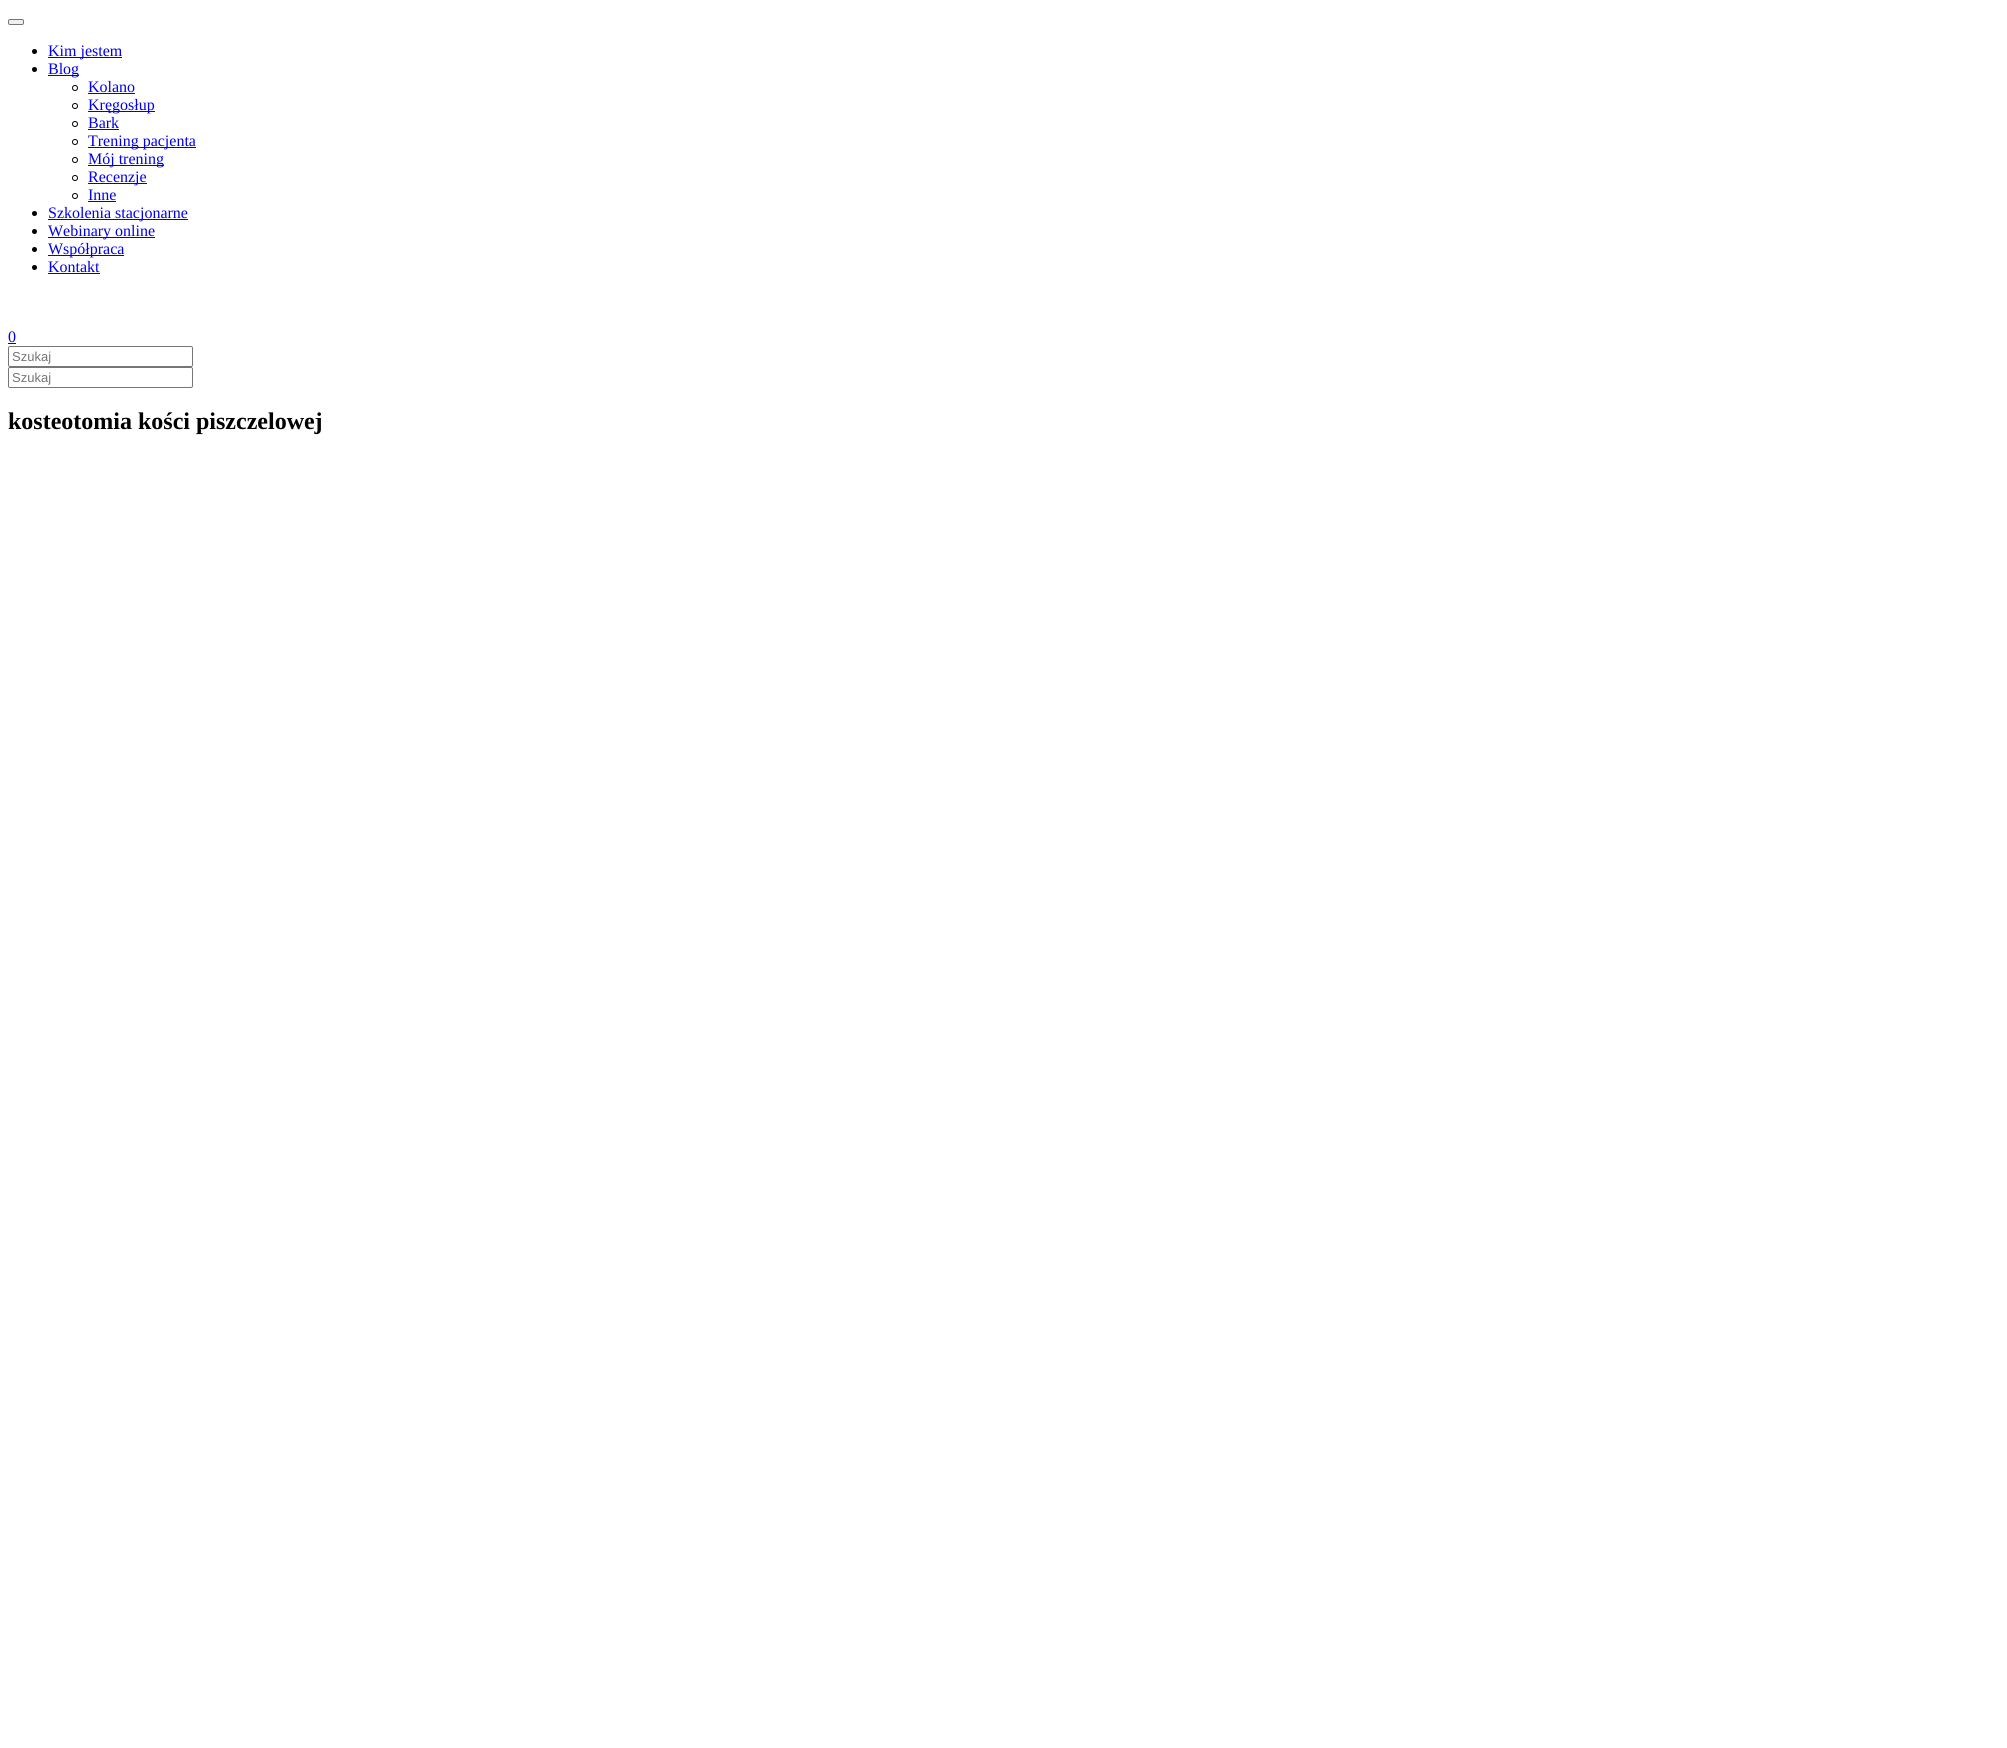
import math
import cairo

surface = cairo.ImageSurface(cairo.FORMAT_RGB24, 2007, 1748)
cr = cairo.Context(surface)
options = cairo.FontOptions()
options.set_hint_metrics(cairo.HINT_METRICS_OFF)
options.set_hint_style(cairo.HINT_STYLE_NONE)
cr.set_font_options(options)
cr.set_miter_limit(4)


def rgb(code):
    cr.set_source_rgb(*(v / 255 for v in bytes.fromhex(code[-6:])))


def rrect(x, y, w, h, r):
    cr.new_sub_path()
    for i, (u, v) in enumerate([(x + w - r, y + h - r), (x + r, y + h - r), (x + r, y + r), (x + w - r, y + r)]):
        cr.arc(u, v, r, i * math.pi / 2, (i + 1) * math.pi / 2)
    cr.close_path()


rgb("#ffffff")
cr.paint()
rgb("#efefef")
rrect(8.5, 19.5, 15, 5, 1.5)
cr.fill_preserve()
rgb("#767676")
cr.set_line_width(1)
cr.stroke()
rgb("#000000")
cr.arc(34.5, 51.5, 2.5, 0, 2 * math.pi)
cr.fill()
rgb("#0000ee")
cr.rectangle(48, 57, 74, 1)
cr.fill()
rgb("#000000")
cr.arc(34.5, 69.5, 2.5, 0, 2 * math.pi)
cr.fill()
rgb("#0000ee")
cr.rectangle(48, 75, 31, 1)
cr.fill()
cr.arc(75, 88, 2.5, 0, 2 * math.pi)
rgb("#000000")
cr.stroke()
rgb("#0000ee")
cr.rectangle(88, 93, 47, 1)
cr.fill()
cr.arc(75, 106, 2.5, 0, 2 * math.pi)
rgb("#000000")
cr.stroke()
rgb("#0000ee")
cr.rectangle(88, 111, 67, 1)
cr.fill()
cr.arc(75, 124, 2.5, 0, 2 * math.pi)
rgb("#000000")
cr.stroke()
rgb("#0000ee")
cr.rectangle(88, 129, 31, 1)
cr.fill()
cr.arc(75, 142, 2.5, 0, 2 * math.pi)
rgb("#000000")
cr.stroke()
rgb("#0000ee")
cr.rectangle(88, 147, 108, 1)
cr.fill()
cr.arc(75, 160, 2.5, 0, 2 * math.pi)
rgb("#000000")
cr.stroke()
rgb("#0000ee")
cr.rectangle(88, 165, 76, 1)
cr.fill()
cr.arc(75, 178, 2.5, 0, 2 * math.pi)
rgb("#000000")
cr.stroke()
rgb("#0000ee")
cr.rectangle(88, 183, 59, 1)
cr.fill()
cr.arc(75, 196, 2.5, 0, 2 * math.pi)
rgb("#000000")
cr.stroke()
rgb("#0000ee")
cr.rectangle(88, 201, 28, 1)
cr.fill()
rgb("#000000")
cr.arc(34.5, 213.5, 2.5, 0, 2 * math.pi)
cr.fill()
rgb("#0000ee")
cr.rectangle(48, 219, 140, 1)
cr.fill()
rgb("#000000")
cr.arc(34.5, 231.5, 2.5, 0, 2 * math.pi)
cr.fill()
rgb("#0000ee")
cr.rectangle(48, 237, 107, 1)
cr.fill()
rgb("#000000")
cr.arc(34.5, 249.5, 2.5, 0, 2 * math.pi)
cr.fill()
rgb("#0000ee")
cr.rectangle(48, 255, 76, 1)
cr.fill()
rgb("#000000")
cr.arc(34.5, 267.5, 2.5, 0, 2 * math.pi)
cr.fill()
rgb("#0000ee")
cr.rectangle(48, 273, 52, 1)
cr.fill()
cr.rectangle(8, 343, 8, 1)
cr.fill()
rrect(8.5, 346.5, 184, 20, 1.5)
rgb("#767676")
cr.stroke()
rrect(8.5, 367.5, 184, 20, 1.5)
cr.stroke()
cr.select_font_face("Liberation Serif")
cr.set_font_size(16)
rgb("#0000ee")
for x, y, s in [
    (48, 56, "Kim jestem"),
    (48, 74, "Blog"),
    (88, 92, "Kolano"),
    (88, 110, "Kręgosłup"),
    (88, 128, "Bark"),
    (88, 146, "Trening pacjenta"),
    (88, 164, "Mój trening"),
    (88, 182, "Recenzje"),
    (88, 200, "Inne"),
    (48, 218, "Szkolenia stacjonarne"),
    (48, 236, "Webinary online"),
    (48, 254, "Współpraca"),
    (48, 272, "Kontakt"),
    (8, 342, "0"),
]:
    cr.move_to(x, y)
    cr.show_text(s)
cr.select_font_face("Liberation Sans")
cr.set_font_size(13)
rgb("#757575")
cr.move_to(12, 361)
cr.show_text("Szukaj")
cr.move_to(12, 382)
cr.show_text("Szukaj")
cr.select_font_face("Liberation Serif", cairo.FONT_SLANT_NORMAL, cairo.FONT_WEIGHT_BOLD)
cr.set_font_size(24)
rgb("#000000")
cr.move_to(8, 429)
cr.show_text("kosteotomia kości piszczelowej")
surface.write_to_png("page.png")
